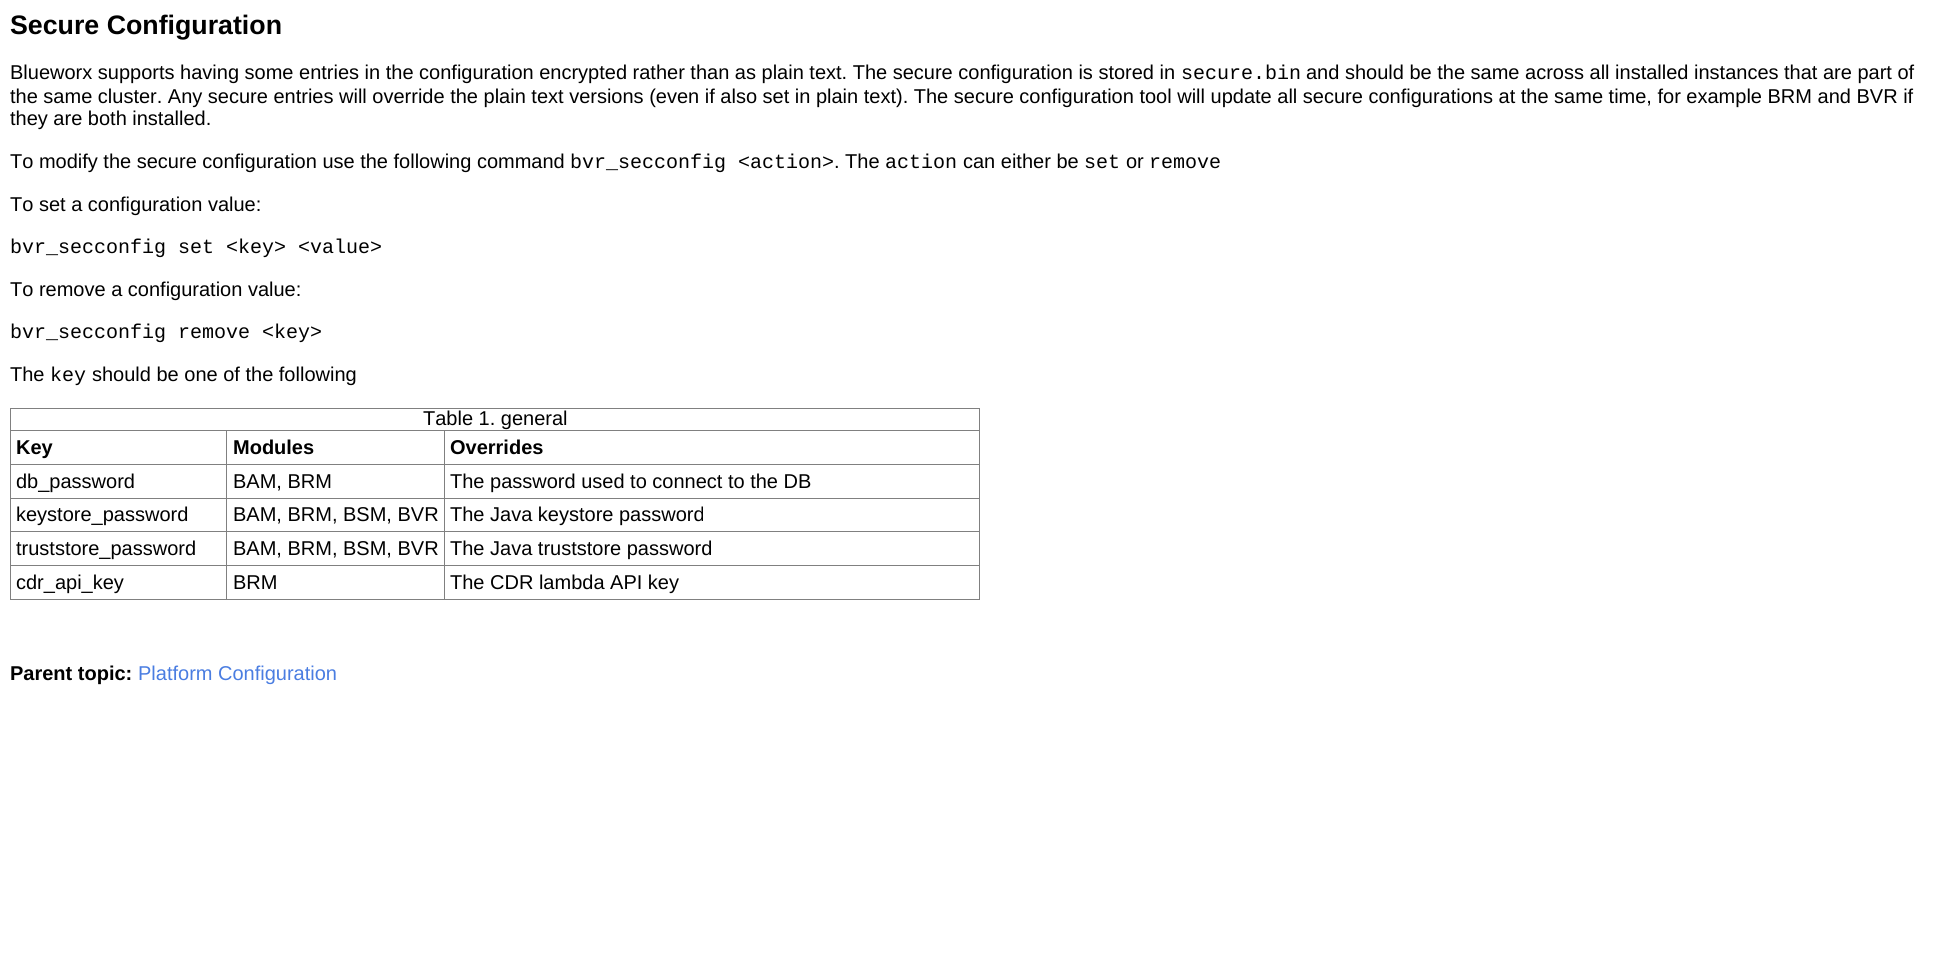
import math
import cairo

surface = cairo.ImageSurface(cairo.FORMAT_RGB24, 1944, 954)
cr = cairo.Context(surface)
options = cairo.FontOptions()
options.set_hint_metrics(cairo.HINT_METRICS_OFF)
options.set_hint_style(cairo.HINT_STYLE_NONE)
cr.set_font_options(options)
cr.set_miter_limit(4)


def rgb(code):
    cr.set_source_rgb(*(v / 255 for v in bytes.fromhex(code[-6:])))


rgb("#ffffff")
cr.paint()
for x, y, w, h, color in [
    (10, 408, 970, 1, "#808080"),
    (979, 408, 1, 192, "#808080"),
    (10, 599, 970, 1, "#808080"),
    (10, 408, 1, 192, "#808080"),
    (444, 430, 536, 1, "#808080"),
    (444, 464, 536, 1, "#808080"),
    (444, 498, 536, 1, "#808080"),
    (444, 531, 536, 1, "#808080"),
    (444, 565, 536, 1, "#808080"),
    (444, 565, 1, 35, "#808080"),
    (226, 565, 219, 1, "#808080"),
    (444, 531, 1, 35, "#808080"),
    (226, 531, 219, 1, "#808080"),
    (444, 498, 1, 35, "#808080"),
    (226, 498, 219, 1, "#808080"),
    (444, 464, 1, 35, "#808080"),
    (226, 464, 219, 1, "#808080"),
    (444, 430, 1, 35, "#808080"),
    (226, 430, 219, 1, "#808080"),
    (226, 565, 1, 35, "#808080"),
    (10, 565, 218, 1, "#808080"),
    (226, 531, 1, 35, "#808080"),
    (10, 531, 218, 1, "#808080"),
    (226, 498, 1, 35, "#808080"),
    (10, 498, 218, 1, "#808080"),
    (226, 464, 1, 35, "#808080"),
    (10, 464, 218, 1, "#808080"),
    (226, 430, 1, 35, "#808080"),
    (10, 430, 218, 1, "#808080"),
]:
    rgb(color)
    cr.rectangle(x, y, w, h)
    cr.fill()
cr.select_font_face("Liberation Sans", cairo.FONT_SLANT_NORMAL, cairo.FONT_WEIGHT_BOLD)
cr.set_font_size(26.75)
rgb("#000000")
cr.move_to(10, 34)
cr.show_text("Secure Configuration")
cr.select_font_face("Liberation Sans")
cr.set_font_size(20)
cr.move_to(10, 79)
cr.show_text("Blueworx supports having some entries in the configuration encrypted rather than as plain text. The secure configuration is stored in")
cr.select_font_face("Liberation Mono")
cr.move_to(1181, 79)
cr.show_text("secure.bin")
cr.select_font_face("Liberation Sans")
for x, y, s in [
    (1306, 79, "and should be the same across all installed instances that are part of"),
    (10, 103, "the same cluster. Any secure entries will override the plain text versions (even if also set in plain text). The secure configuration tool will update all secure configurations at the same time, for example BRM and BVR if"),
    (10, 125, "they are both installed."),
    (10, 168, "To modify the secure configuration use the following command"),
]:
    cr.move_to(x, y)
    cr.show_text(s)
cr.select_font_face("Liberation Mono")
cr.move_to(570, 168)
cr.show_text("bvr_secconfig <action>")
cr.select_font_face("Liberation Sans")
cr.move_to(834, 168)
cr.show_text(". The")
cr.select_font_face("Liberation Mono")
cr.move_to(885, 168)
cr.show_text("action")
cr.select_font_face("Liberation Sans")
cr.move_to(963, 168)
cr.show_text("can either be")
cr.select_font_face("Liberation Mono")
cr.move_to(1084, 168)
cr.show_text("set")
cr.select_font_face("Liberation Sans")
cr.move_to(1126, 168)
cr.show_text("or")
cr.select_font_face("Liberation Mono")
cr.move_to(1149, 168)
cr.show_text("remove")
cr.select_font_face("Liberation Sans")
cr.move_to(10, 211)
cr.show_text("To set a configuration value:")
cr.select_font_face("Liberation Mono")
cr.move_to(10, 253)
cr.show_text("bvr_secconfig set <key> <value>")
cr.select_font_face("Liberation Sans")
cr.move_to(10, 296)
cr.show_text("To remove a configuration value:")
cr.select_font_face("Liberation Mono")
cr.move_to(10, 338)
cr.show_text("bvr_secconfig remove <key>")
cr.select_font_face("Liberation Sans")
cr.move_to(10, 381)
cr.show_text("The")
cr.select_font_face("Liberation Mono")
cr.move_to(50, 381)
cr.show_text("key")
cr.select_font_face("Liberation Sans")
cr.move_to(92, 381)
cr.show_text("should be one of the following")
cr.move_to(423, 425)
cr.show_text("Table 1. general")
cr.select_font_face("Liberation Sans", cairo.FONT_SLANT_NORMAL, cairo.FONT_WEIGHT_BOLD)
for x, y, s in [
    (16, 454, "Key"),
    (233, 454, "Modules"),
    (450, 454, "Overrides"),
]:
    cr.move_to(x, y)
    cr.show_text(s)
cr.select_font_face("Liberation Sans")
for x, y, s in [
    (16, 488, "db_password"),
    (233, 488, "BAM, BRM"),
    (450, 488, "The password used to connect to the DB"),
    (16, 521, "keystore_password"),
    (233, 521, "BAM, BRM, BSM, BVR"),
    (450, 521, "The Java keystore password"),
    (16, 555, "truststore_password"),
    (233, 555, "BAM, BRM, BSM, BVR"),
    (450, 555, "The Java truststore password"),
    (16, 589, "cdr_api_key"),
    (233, 589, "BRM"),
    (450, 589, "The CDR lambda API key"),
]:
    cr.move_to(x, y)
    cr.show_text(s)
cr.select_font_face("Liberation Sans", cairo.FONT_SLANT_NORMAL, cairo.FONT_WEIGHT_BOLD)
cr.move_to(10, 680)
cr.show_text("Parent topic:")
cr.select_font_face("Liberation Sans")
rgb("#4a7de1")
cr.move_to(138, 680)
cr.show_text("Platform Configuration")
surface.write_to_png("page.png")
